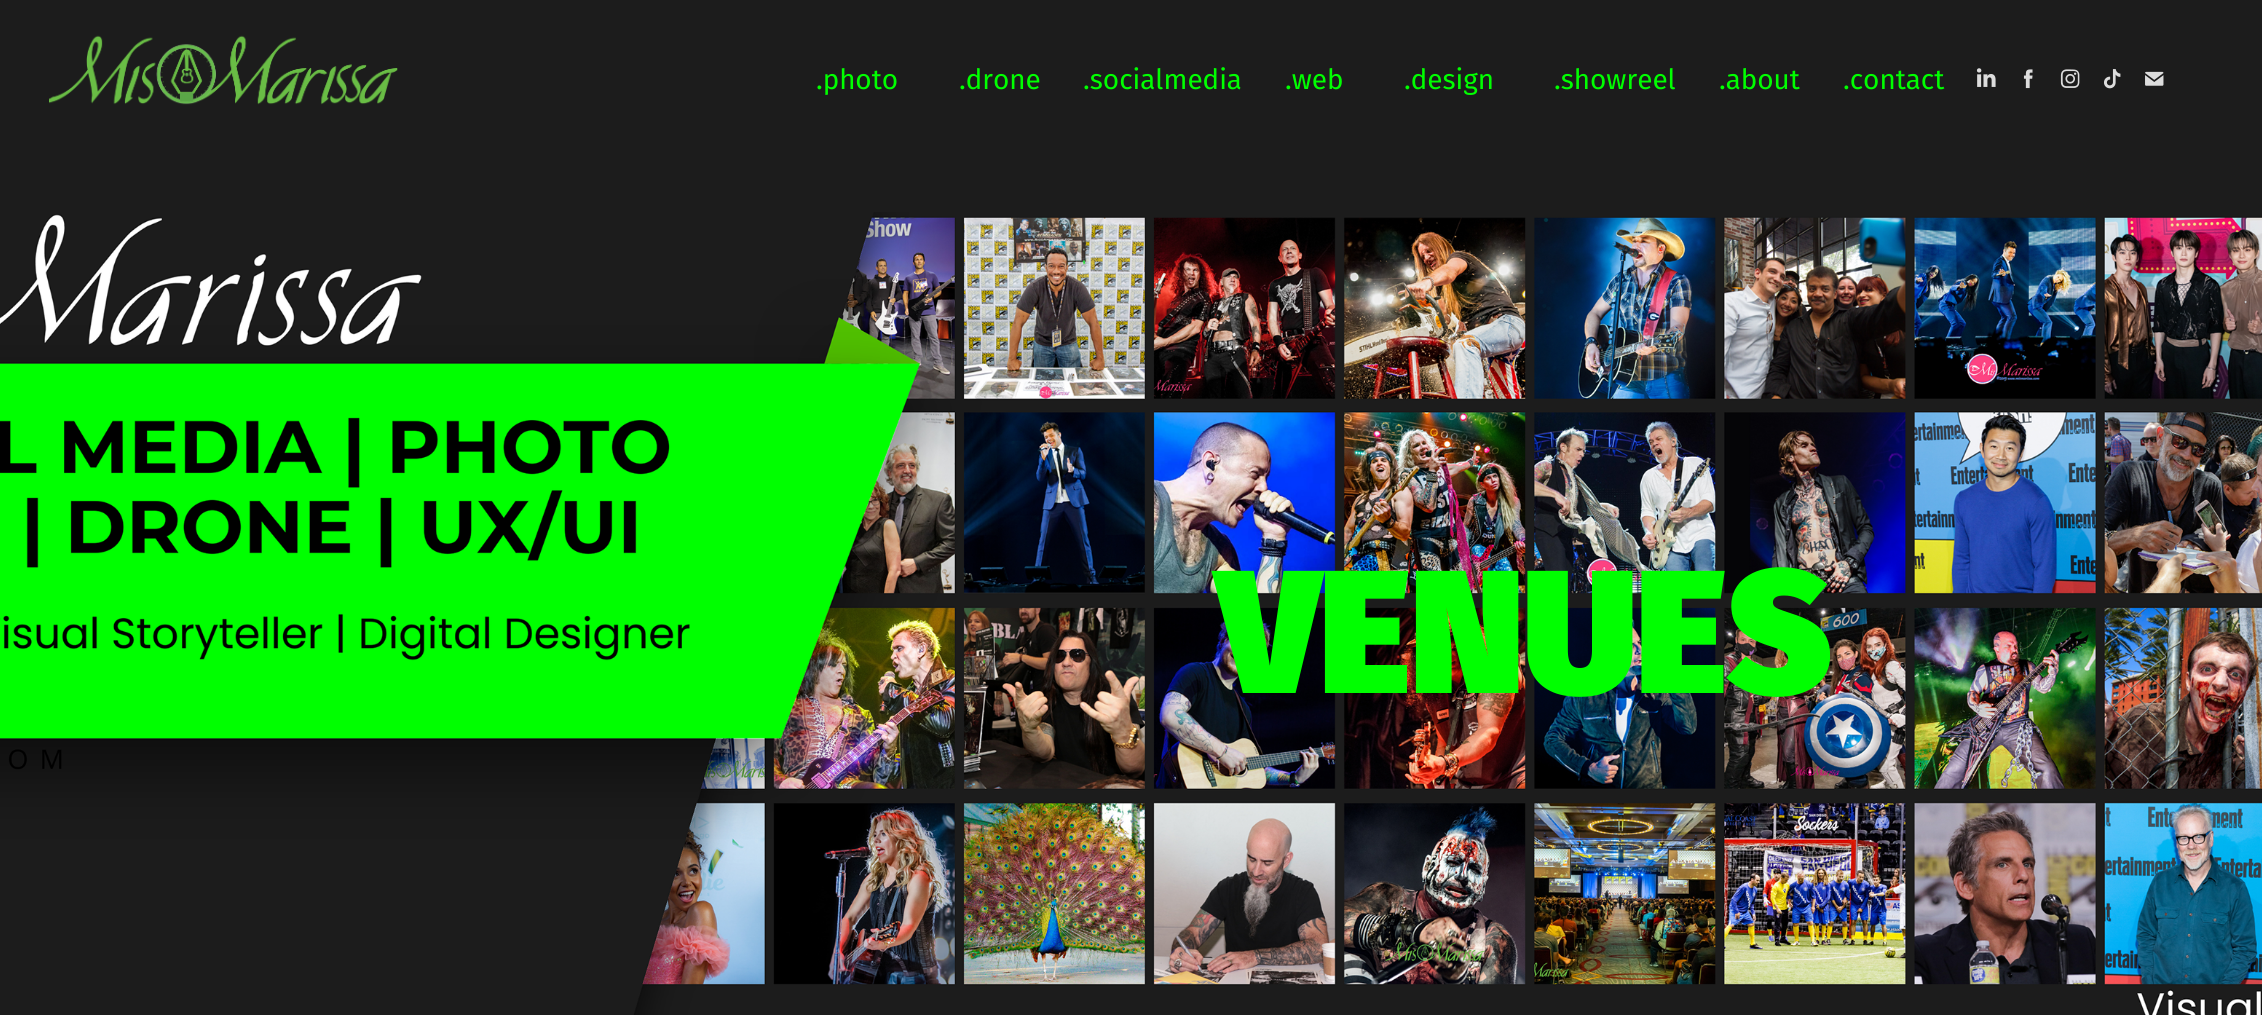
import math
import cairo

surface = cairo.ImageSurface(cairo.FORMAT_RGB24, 2262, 1015)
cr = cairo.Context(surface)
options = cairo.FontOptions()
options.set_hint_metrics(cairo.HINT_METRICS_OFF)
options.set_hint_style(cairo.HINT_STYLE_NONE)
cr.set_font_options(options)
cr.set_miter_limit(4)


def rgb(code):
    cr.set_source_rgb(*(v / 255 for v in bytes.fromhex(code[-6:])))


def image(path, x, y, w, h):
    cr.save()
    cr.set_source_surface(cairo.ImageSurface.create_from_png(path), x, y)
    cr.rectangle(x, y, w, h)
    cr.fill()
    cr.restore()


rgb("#1c1c1c")
cr.paint()
image("img/1.png", 49, 35, 349, 70)
image("img/2.png", 1976, 68, 20, 19)
image("img/3.png", 2023, 69, 10, 20)
image("img/4.png", 2060, 69, 20, 19)
image("img/5.png", 2104, 69, 17, 20)
image("img/6.png", 2145, 71, 19, 15)
image("img/7.png", 0, 212, 2262, 803)
cr.select_font_face("Fira Sans")
cr.set_font_size(28)
rgb("#00ff00")
for x, y, s in [
    (816, 89, ".photo"),
    (959, 89, ".drone"),
    (1083, 89, ".socialmedia"),
    (1285, 89, ".web"),
    (1404, 89, ".design"),
    (1554, 89, ".showreel"),
    (1719, 89, ".about"),
    (1843, 89, ".contact"),
]:
    cr.move_to(x, y)
    cr.show_text(s)
cr.select_font_face("Fira Sans Black")
cr.set_font_size(175)
cr.move_to(1217, 693)
cr.show_text("VENUES")
surface.write_to_png("page.png")
